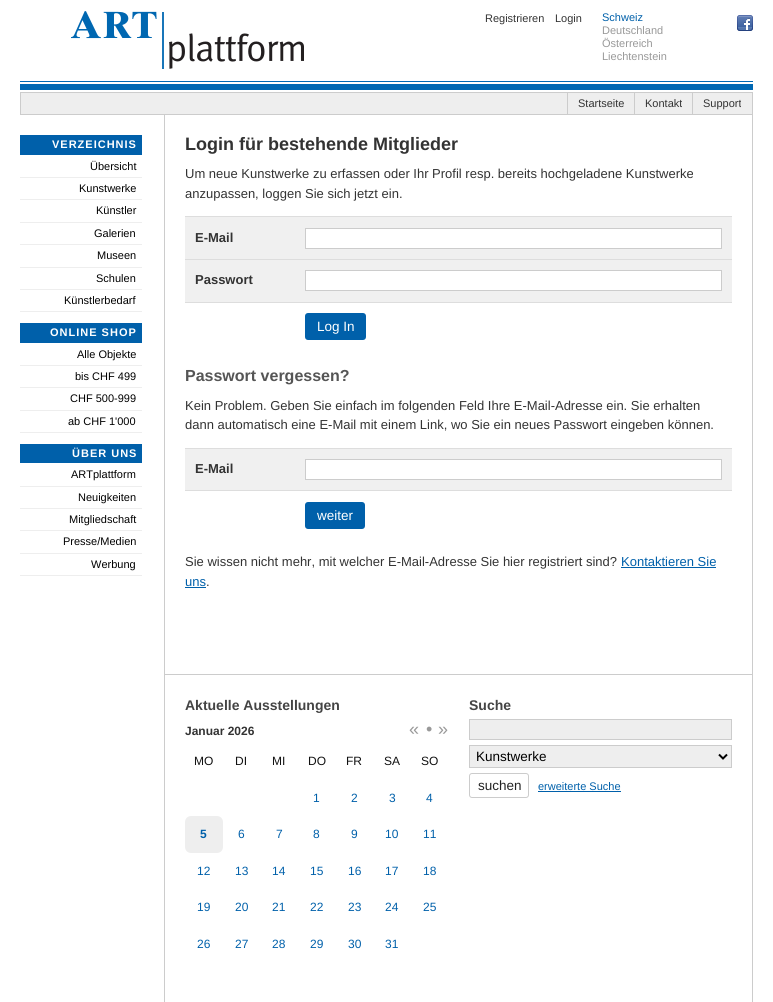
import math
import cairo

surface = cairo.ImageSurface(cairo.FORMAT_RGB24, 773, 1002)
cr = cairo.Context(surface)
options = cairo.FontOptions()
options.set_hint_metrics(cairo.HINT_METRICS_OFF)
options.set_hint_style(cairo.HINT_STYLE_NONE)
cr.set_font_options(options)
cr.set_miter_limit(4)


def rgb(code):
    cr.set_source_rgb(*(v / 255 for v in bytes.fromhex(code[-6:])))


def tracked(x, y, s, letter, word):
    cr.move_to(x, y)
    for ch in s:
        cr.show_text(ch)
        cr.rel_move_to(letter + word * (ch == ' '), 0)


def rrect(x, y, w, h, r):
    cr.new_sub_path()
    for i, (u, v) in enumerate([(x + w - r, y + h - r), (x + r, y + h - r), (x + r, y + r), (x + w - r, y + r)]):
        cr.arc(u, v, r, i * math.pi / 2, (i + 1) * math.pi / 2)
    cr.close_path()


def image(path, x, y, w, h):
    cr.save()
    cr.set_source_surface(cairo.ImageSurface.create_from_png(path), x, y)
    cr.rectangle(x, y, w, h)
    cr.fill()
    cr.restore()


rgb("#ffffff")
cr.paint()
image("img/1.png", 20, 81, 733, 9)
image("img/2.png", 71, 11, 233, 58)
image("img/3.png", 737, 15, 16, 16)
rgb("#eeeeee")
cr.rectangle(20.5, 92.5, 732, 22)
cr.fill_preserve()
rgb("#cccccc")
cr.set_line_width(1)
cr.stroke()
for x, y, w, h, color in [
    (567, 93, 1, 21, "#cccccc"),
    (634, 93, 1, 21, "#cccccc"),
    (692, 93, 1, 21, "#cccccc"),
    (20, 135, 122, 20, "#0060aa"),
    (20, 177, 122, 1, "#eeeeee"),
    (20, 199, 122, 1, "#eeeeee"),
    (20, 222, 122, 1, "#eeeeee"),
    (20, 244, 122, 1, "#eeeeee"),
    (20, 267, 122, 1, "#eeeeee"),
    (20, 289, 122, 1, "#eeeeee"),
    (20, 311, 122, 1, "#eeeeee"),
    (20, 323, 122, 20, "#0060aa"),
    (20, 365, 122, 1, "#eeeeee"),
    (20, 387, 122, 1, "#eeeeee"),
    (20, 410, 122, 1, "#eeeeee"),
    (20, 432, 122, 1, "#eeeeee"),
    (20, 444, 122, 19, "#0060aa"),
    (20, 486, 122, 1, "#eeeeee"),
    (20, 508, 122, 1, "#eeeeee"),
    (20, 530, 122, 1, "#eeeeee"),
    (20, 553, 122, 1, "#eeeeee"),
    (20, 575, 122, 1, "#eeeeee"),
    (752, 115, 1, 887, "#cccccc"),
    (164, 674, 589, 1, "#cccccc"),
    (164, 115, 1, 560, "#cccccc"),
    (185, 216, 547, 1, "#dddddd"),
    (185, 217, 547, 42, "#f0f0f0"),
    (185, 259, 547, 1, "#dddddd"),
]:
    rgb(color)
    cr.rectangle(x, y, w, h)
    cr.fill()
rgb("#ffffff")
cr.rectangle(305.5, 228.5, 416, 20)
cr.fill_preserve()
rgb("#cccccc")
cr.stroke()
rgb("#f0f0f0")
cr.rectangle(185, 260, 547, 42)
cr.fill()
rgb("#dddddd")
cr.rectangle(185, 302, 547, 1)
cr.fill()
rgb("#ffffff")
cr.rectangle(305.5, 270.5, 416, 20)
cr.fill_preserve()
rgb("#cccccc")
cr.stroke()
rgb("#0060aa")
rrect(305, 313, 61, 27, 3)
cr.fill()
for x, y, w, h, color in [
    (185, 448, 547, 1, "#dddddd"),
    (185, 449, 547, 41, "#f0f0f0"),
    (185, 490, 547, 1, "#dddddd"),
]:
    rgb(color)
    cr.rectangle(x, y, w, h)
    cr.fill()
rgb("#ffffff")
cr.rectangle(305.5, 459.5, 416, 20)
cr.fill_preserve()
rgb("#cccccc")
cr.stroke()
rgb("#0060aa")
rrect(305, 502, 60, 27, 3)
cr.fill()
for x, y, w, h, color in [
    (621, 567, 95, 1, "#0060aa"),
    (185, 587, 21, 1, "#0060aa"),
    (164, 675, 1, 327, "#cccccc"),
]:
    rgb(color)
    cr.rectangle(x, y, w, h)
    cr.fill()
rgb("#eeeeee")
rrect(185, 816, 38, 37, 6)
cr.fill()
cr.rectangle(469.5, 719.5, 262, 20)
cr.fill_preserve()
rgb("#cccccc")
cr.stroke()
rgb("#eeeeee")
cr.rectangle(469.5, 745.5, 262, 22)
cr.fill_preserve()
rgb("#cccccc")
cr.stroke()
cr.new_path()
cr.move_to(719, 754.5)
cr.line_to(723, 758.5)
cr.line_to(727, 754.5)
rgb("#000000")
cr.set_line_width(2)
cr.stroke()
rrect(469.5, 773.5, 59, 24, 2.5)
rgb("#cccccc")
cr.set_line_width(1)
cr.stroke()
rgb("#0060aa")
cr.rectangle(538, 791, 83, 1)
cr.fill()
cr.select_font_face("Liberation Sans")
cr.set_font_size(11)
rgb("#333333")
cr.move_to(485, 22)
cr.show_text("Registrieren")
cr.move_to(555, 22)
cr.show_text("Login")
rgb("#0060aa")
cr.move_to(602, 21)
cr.show_text("Schweiz")
rgb("#999999")
for x, y, s in [
    (602, 34, "Deutschland"),
    (602, 47, "Österreich"),
    (602, 60, "Liechtenstein"),
]:
    cr.move_to(x, y)
    cr.show_text(s)
rgb("#333333")
for x, y, s in [
    (578, 107, "Startseite"),
    (645, 107, "Kontakt"),
    (703, 107, "Support"),
]:
    cr.move_to(x, y)
    cr.show_text(s)
cr.select_font_face("Liberation Sans", cairo.FONT_SLANT_NORMAL, cairo.FONT_WEIGHT_BOLD)
rgb("#ffffff")
tracked(52, 148, "VERZEICHNIS", 1, 0)
cr.select_font_face("Liberation Sans")
rgb("#000000")
for x, y, s in [
    (90, 170, "Übersicht"),
    (79, 192, "Kunstwerke"),
    (96, 214, "Künstler"),
    (94, 237, "Galerien"),
    (97, 259, "Museen"),
    (96, 282, "Schulen"),
    (64, 304, "Künstlerbedarf"),
]:
    cr.move_to(x, y)
    cr.show_text(s)
cr.select_font_face("Liberation Sans", cairo.FONT_SLANT_NORMAL, cairo.FONT_WEIGHT_BOLD)
rgb("#ffffff")
tracked(50, 336, "ONLINE SHOP", 1, 0)
cr.select_font_face("Liberation Sans")
rgb("#000000")
for x, y, s in [
    (77, 358, "Alle Objekte"),
    (75, 380, "bis CHF 499"),
    (70, 402, "CHF 500-999"),
    (68, 425, "ab CHF 1'000"),
]:
    cr.move_to(x, y)
    cr.show_text(s)
cr.select_font_face("Liberation Sans", cairo.FONT_SLANT_NORMAL, cairo.FONT_WEIGHT_BOLD)
rgb("#ffffff")
tracked(72, 457, "ÜBER UNS", 1, 0)
cr.select_font_face("Liberation Sans")
rgb("#000000")
for x, y, s in [
    (71, 478, "ARTplattform"),
    (78, 501, "Neuigkeiten"),
    (69, 523, "Mitgliedschaft"),
    (63, 545, "Presse/Medien"),
    (91, 568, "Werbung"),
]:
    cr.move_to(x, y)
    cr.show_text(s)
cr.select_font_face("Liberation Sans", cairo.FONT_SLANT_NORMAL, cairo.FONT_WEIGHT_BOLD)
cr.set_font_size(18)
rgb("#333333")
cr.move_to(185, 150)
cr.show_text("Login für bestehende Mitglieder")
cr.select_font_face("Liberation Sans")
cr.set_font_size(13)
cr.move_to(185, 178)
cr.show_text("Um neue Kunstwerke zu erfassen oder Ihr Profil resp. bereits hochgeladene Kunstwerke")
cr.move_to(185, 198)
cr.show_text("anzupassen, loggen Sie sich jetzt ein.")
cr.select_font_face("Liberation Sans", cairo.FONT_SLANT_NORMAL, cairo.FONT_WEIGHT_BOLD)
cr.move_to(195, 242)
cr.show_text("E-Mail")
cr.move_to(195, 284)
cr.show_text("Passwort")
cr.select_font_face("Liberation Sans")
cr.set_font_size(13.5)
rgb("#ffffff")
cr.move_to(317, 331)
cr.show_text("Log In")
cr.select_font_face("Liberation Sans", cairo.FONT_SLANT_NORMAL, cairo.FONT_WEIGHT_BOLD)
cr.set_font_size(16)
rgb("#555555")
cr.move_to(185, 381)
cr.show_text("Passwort vergessen?")
cr.select_font_face("Liberation Sans")
cr.set_font_size(13)
rgb("#333333")
cr.move_to(185, 410)
cr.show_text("Kein Problem. Geben Sie einfach im folgenden Feld Ihre E-Mail-Adresse ein. Sie erhalten")
cr.move_to(185, 429)
cr.show_text("dann automatisch eine E-Mail mit einem Link, wo Sie ein neues Passwort eingeben können.")
cr.select_font_face("Liberation Sans", cairo.FONT_SLANT_NORMAL, cairo.FONT_WEIGHT_BOLD)
cr.move_to(195, 473)
cr.show_text("E-Mail")
cr.select_font_face("Liberation Sans")
cr.set_font_size(13.5)
rgb("#ffffff")
cr.move_to(317, 520)
cr.show_text("weiter")
cr.set_font_size(13)
rgb("#333333")
cr.move_to(185, 566)
cr.show_text("Sie wissen nicht mehr, mit welcher E-Mail-Adresse Sie hier registriert sind?")
rgb("#0060aa")
cr.move_to(621, 566)
cr.show_text("Kontaktieren Sie")
cr.move_to(185, 586)
cr.show_text("uns")
rgb("#333333")
cr.move_to(206, 586)
cr.show_text(".")
cr.select_font_face("Liberation Sans", cairo.FONT_SLANT_NORMAL, cairo.FONT_WEIGHT_BOLD)
cr.set_font_size(14)
rgb("#444444")
cr.move_to(185, 710)
cr.show_text("Aktuelle Ausstellungen")
cr.set_font_size(12)
rgb("#333333")
cr.move_to(185, 735)
cr.show_text("Januar 2026")
cr.select_font_face("Liberation Sans")
cr.set_font_size(18)
rgb("#999999")
for x, y, s in [
    (409, 735, "«"),
    (426, 735, "•"),
    (438, 735, "»"),
]:
    cr.move_to(x, y)
    cr.show_text(s)
cr.set_font_size(12)
rgb("#111111")
for x, y, s in [
    (194, 765, "MO"),
    (235, 765, "DI"),
    (272, 765, "MI"),
    (308, 765, "DO"),
    (346, 765, "FR"),
    (384, 765, "SA"),
    (421, 765, "SO"),
]:
    cr.move_to(x, y)
    cr.show_text(s)
rgb("#0060aa")
for x, y, s in [
    (313, 802, "1"),
    (351, 802, "2"),
    (389, 802, "3"),
    (426, 802, "4"),
]:
    cr.move_to(x, y)
    cr.show_text(s)
cr.select_font_face("Liberation Sans", cairo.FONT_SLANT_NORMAL, cairo.FONT_WEIGHT_BOLD)
cr.move_to(200, 838)
cr.show_text("5")
cr.select_font_face("Liberation Sans")
for x, y, s in [
    (238, 838, "6"),
    (276, 838, "7"),
    (313, 838, "8"),
    (351, 838, "9"),
    (385, 838, "10"),
    (423, 838, "11"),
    (197, 875, "12"),
    (235, 875, "13"),
    (272, 875, "14"),
    (310, 875, "15"),
    (348, 875, "16"),
    (385, 875, "17"),
    (423, 875, "18"),
    (197, 911, "19"),
    (235, 911, "20"),
    (272, 911, "21"),
    (310, 911, "22"),
    (348, 911, "23"),
    (385, 911, "24"),
    (423, 911, "25"),
    (197, 948, "26"),
    (235, 948, "27"),
    (272, 948, "28"),
    (310, 948, "29"),
    (348, 948, "30"),
    (385, 948, "31"),
]:
    cr.move_to(x, y)
    cr.show_text(s)
cr.select_font_face("Liberation Sans", cairo.FONT_SLANT_NORMAL, cairo.FONT_WEIGHT_BOLD)
cr.set_font_size(14)
rgb("#444444")
cr.move_to(469, 710)
cr.show_text("Suche")
cr.select_font_face("Liberation Sans")
cr.set_font_size(13.5)
rgb("#000000")
cr.move_to(476, 761)
cr.show_text("Kunstwerke")
rgb("#222222")
cr.move_to(478, 790)
cr.show_text("suchen")
cr.set_font_size(11)
rgb("#0060aa")
cr.move_to(538, 790)
cr.show_text("erweiterte Suche")
surface.write_to_png("page.png")
